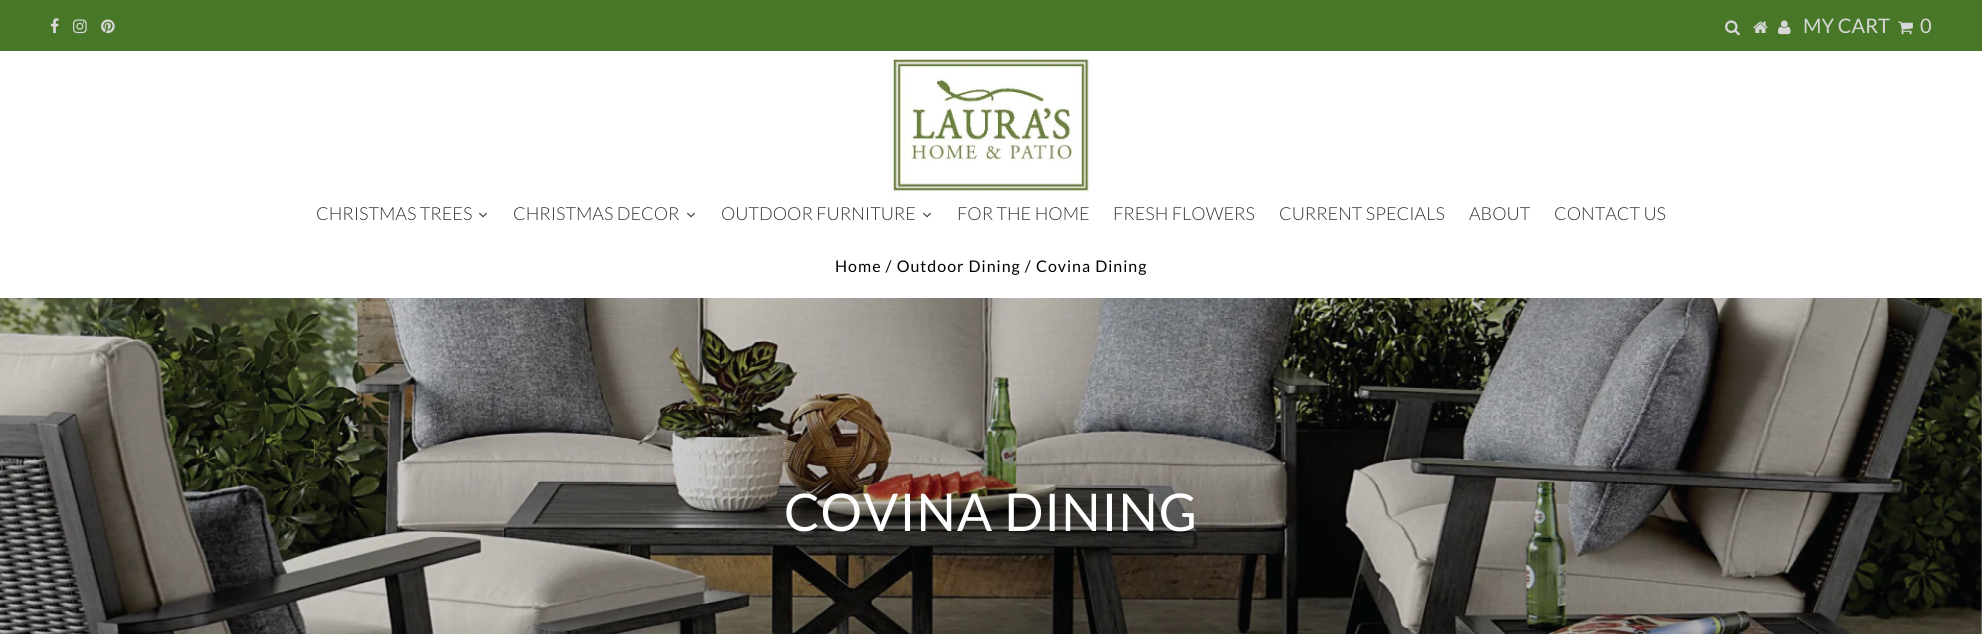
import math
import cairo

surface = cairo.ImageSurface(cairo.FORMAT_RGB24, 1982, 634)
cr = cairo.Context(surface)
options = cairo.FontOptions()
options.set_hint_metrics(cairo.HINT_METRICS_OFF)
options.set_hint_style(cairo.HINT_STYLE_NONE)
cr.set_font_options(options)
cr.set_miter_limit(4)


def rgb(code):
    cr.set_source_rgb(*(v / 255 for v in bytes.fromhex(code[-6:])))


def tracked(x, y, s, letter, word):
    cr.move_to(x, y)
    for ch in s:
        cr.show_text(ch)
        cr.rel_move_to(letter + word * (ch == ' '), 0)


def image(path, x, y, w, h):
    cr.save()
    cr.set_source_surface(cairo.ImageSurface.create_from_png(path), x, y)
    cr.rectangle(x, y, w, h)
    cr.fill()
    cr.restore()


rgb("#ffffff")
cr.paint()
rgb("#487728")
cr.rectangle(0, 0, 1982, 51)
cr.fill()
image("img/1.png", 50, 18, 9, 16)
image("img/2.png", 73, 19, 14, 15)
image("img/3.png", 101, 19, 14, 15)
image("img/4.png", 1725, 20, 15, 16)
image("img/5.png", 1753, 21, 15, 12)
image("img/6.png", 1778, 20, 13, 15)
image("img/7.png", 1898, 21, 15, 14)
image("img/8.png", 891, 57, 200, 136)
image("img/9.png", 479, 212, 8, 6)
image("img/9.png", 687, 212, 8, 6)
image("img/9.png", 923, 212, 8, 6)
image("img/10.png", 0, 298, 1982, 336)
cr.select_font_face("Lato")
cr.set_font_size(20)
rgb("#d7d7d7")
cr.move_to(1803, 33)
cr.show_text("MY CART")
cr.move_to(1920, 33)
cr.show_text("0")
cr.select_font_face("Lato Light")
cr.set_font_size(18)
rgb("#333333")
for x, y, s in [
    (316, 220, "CHRISTMAS TREES"),
    (513, 220, "CHRISTMAS DECOR"),
    (721, 220, "OUTDOOR FURNITURE"),
    (957, 220, "FOR THE HOME"),
    (1113, 220, "FRESH FLOWERS"),
    (1279, 220, "CURRENT SPECIALS"),
    (1469, 220, "ABOUT"),
    (1554, 220, "CONTACT US"),
]:
    cr.move_to(x, y)
    cr.show_text(s)
cr.select_font_face("Lato")
cr.set_font_size(16)
rgb("#000000")
tracked(835, 272, "Home / Outdoor Dining / Covina Dining", 1, 0)
cr.set_font_size(52)
rgb("#ffffff")
tracked(784, 531, "COVINA DINING", 1, 0)
surface.write_to_png("page.png")
